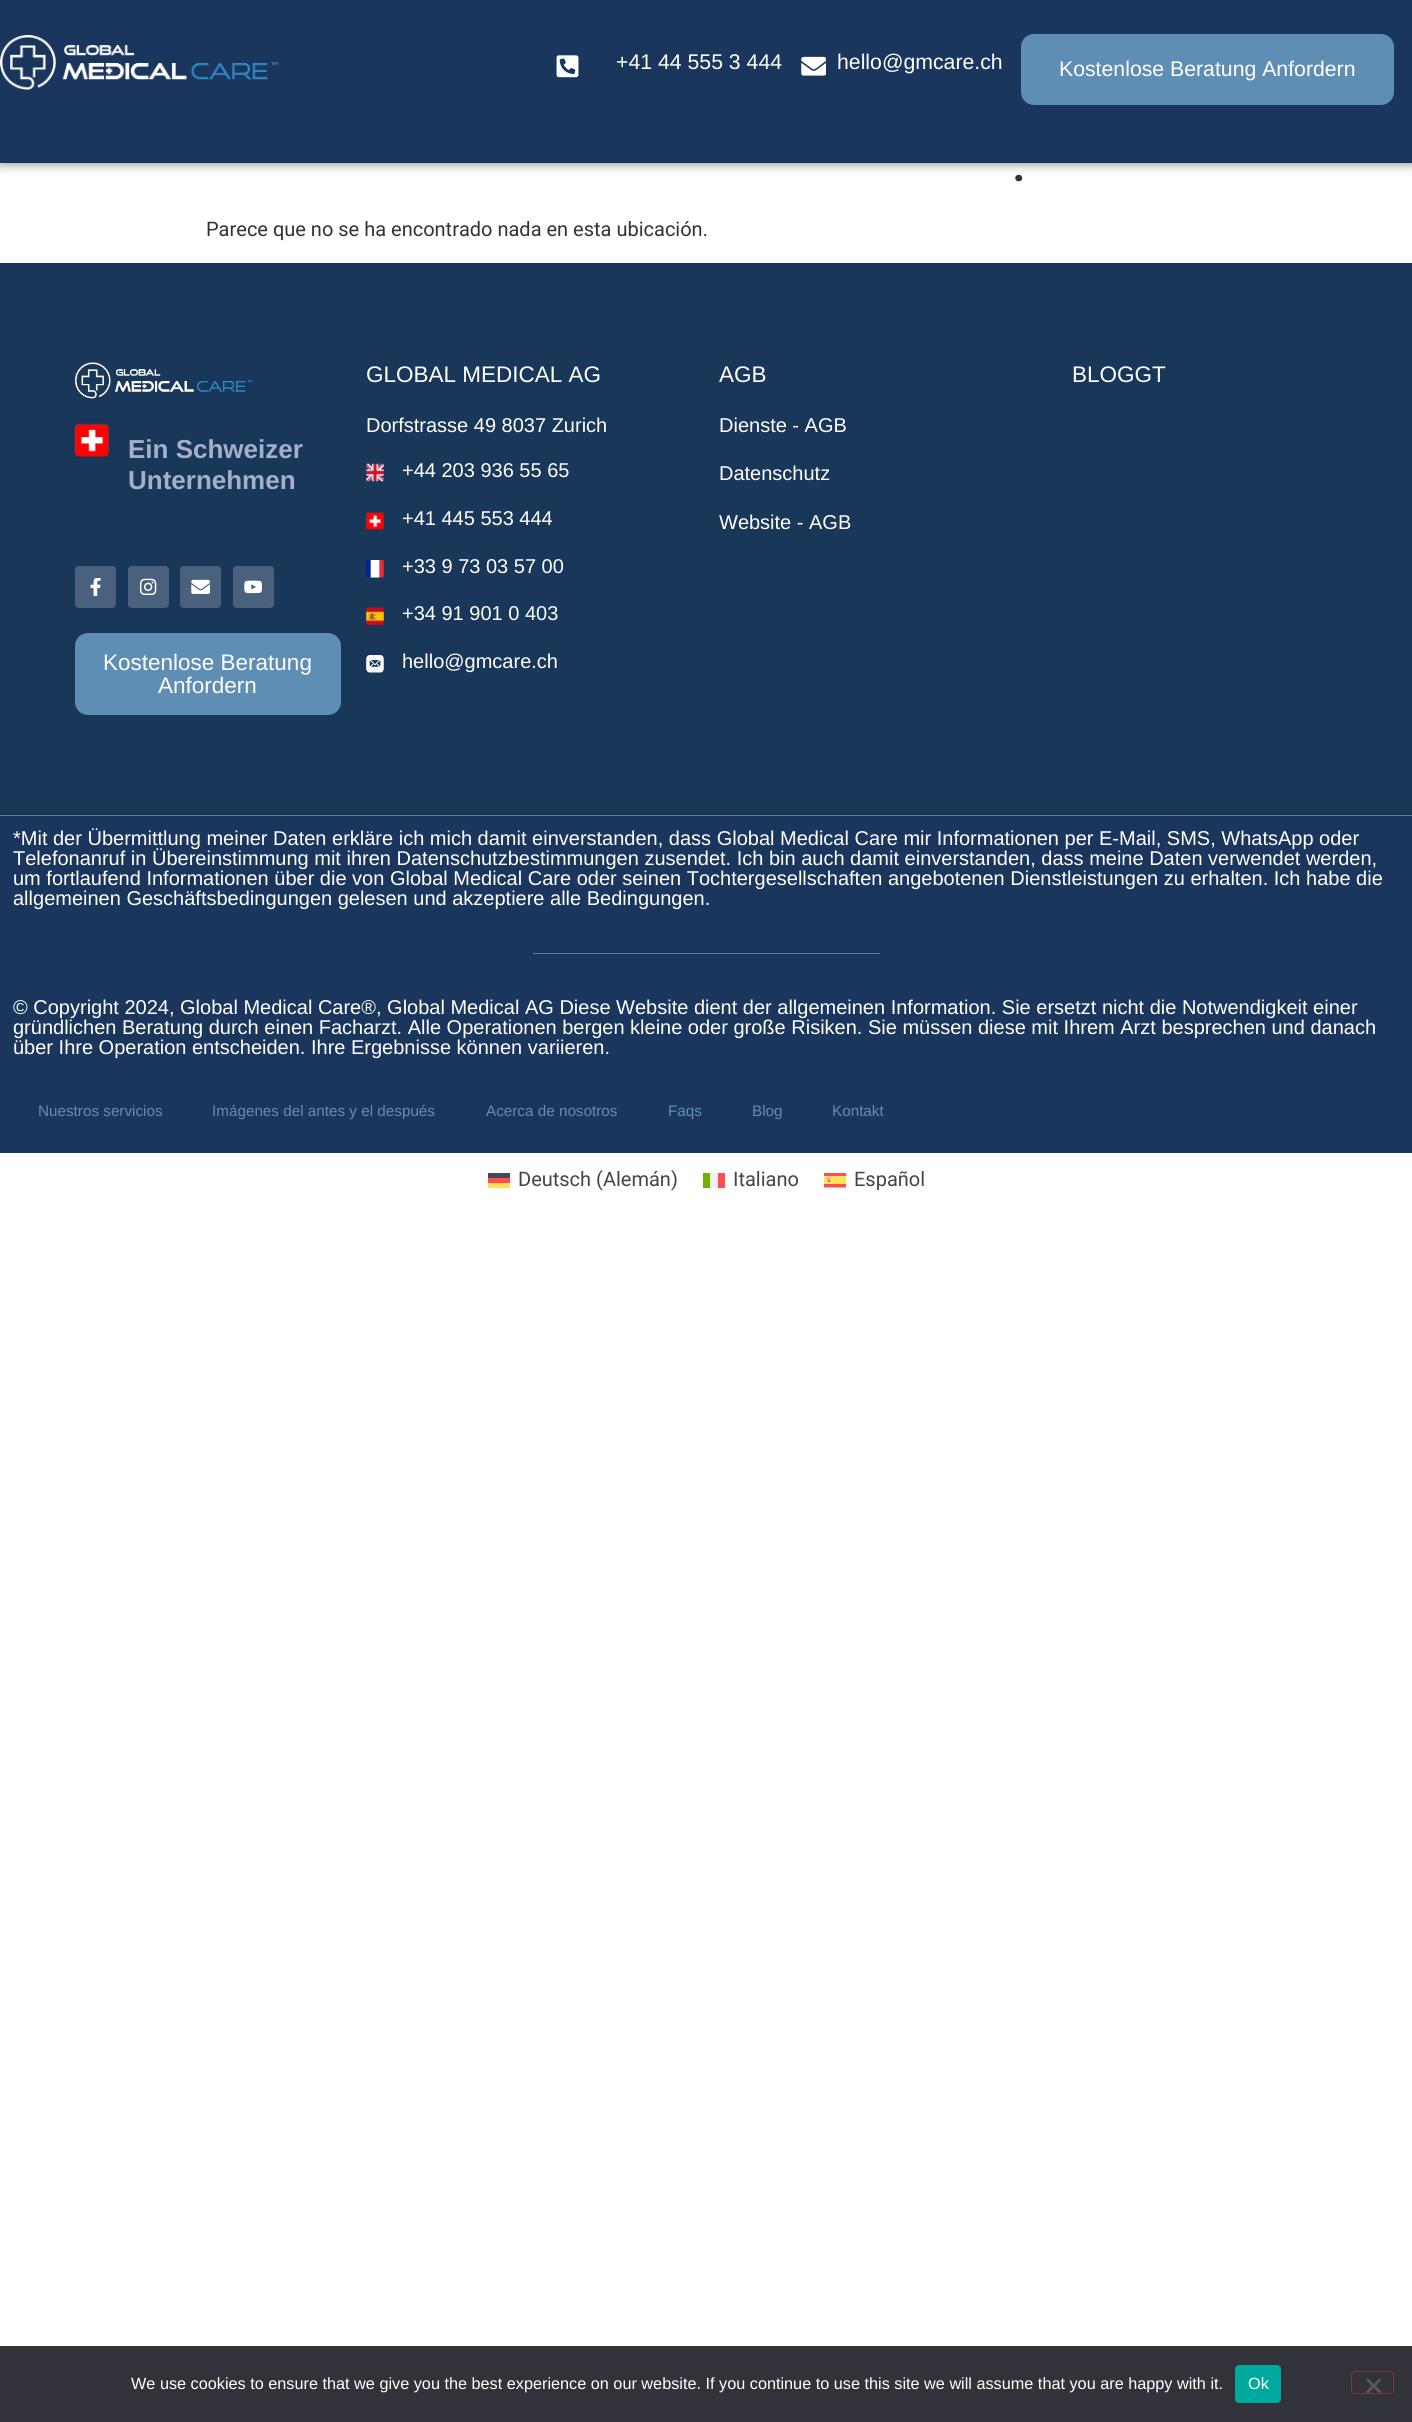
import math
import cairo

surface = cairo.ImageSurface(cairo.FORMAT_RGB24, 1412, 2422)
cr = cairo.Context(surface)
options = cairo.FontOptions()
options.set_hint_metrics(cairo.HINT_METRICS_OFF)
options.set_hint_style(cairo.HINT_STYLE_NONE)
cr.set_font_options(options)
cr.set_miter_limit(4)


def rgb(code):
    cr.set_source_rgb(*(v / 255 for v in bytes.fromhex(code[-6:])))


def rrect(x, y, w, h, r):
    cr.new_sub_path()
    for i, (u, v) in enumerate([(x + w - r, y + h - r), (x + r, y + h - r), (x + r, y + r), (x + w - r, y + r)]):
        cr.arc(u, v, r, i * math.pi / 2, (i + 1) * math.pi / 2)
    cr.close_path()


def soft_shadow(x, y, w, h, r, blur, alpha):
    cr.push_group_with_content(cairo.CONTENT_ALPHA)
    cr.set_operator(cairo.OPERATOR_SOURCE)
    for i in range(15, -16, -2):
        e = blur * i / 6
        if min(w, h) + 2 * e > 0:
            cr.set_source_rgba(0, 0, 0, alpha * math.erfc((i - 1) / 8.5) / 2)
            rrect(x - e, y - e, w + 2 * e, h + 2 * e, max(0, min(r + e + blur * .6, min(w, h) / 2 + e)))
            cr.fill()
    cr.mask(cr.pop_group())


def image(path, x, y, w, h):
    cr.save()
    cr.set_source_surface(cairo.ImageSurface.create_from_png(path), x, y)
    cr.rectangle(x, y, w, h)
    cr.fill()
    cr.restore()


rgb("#ffffff")
cr.paint()
rgb("#000000")
soft_shadow(0, -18, 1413, 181, 0, 6, 0.5)
rgb("#1a365d")
cr.rectangle(0, 0, 1412, 163)
cr.fill()
image("img/1.png", 0, 35, 279, 55)
image("img/2.png", 556, 55, 23, 23)
image("img/3.png", 801, 56, 25, 20)
rgb("#5e8eb4")
rrect(1021, 34, 373, 71, 13)
cr.fill()
rgb("#193759")
cr.rectangle(0, 263, 1412, 552)
cr.fill()
image("img/4.png", 366, 463, 18, 19)
image("img/5.png", 366, 512, 18, 18)
image("img/6.png", 366, 560, 18, 18)
image("img/7.png", 366, 607, 18, 18)
image("img/8.png", 366, 655, 18, 18)
image("img/9.png", 75, 362, 178, 37)
image("img/10.png", 75, 423, 34, 35)
rgb("#49617c")
rrect(75, 566, 41, 42, 4)
cr.fill()
image("img/11.png", 90, 578, 11, 18)
rrect(128, 566, 41, 42, 4)
cr.fill()
image("img/12.png", 139, 578, 18, 17)
rrect(180, 566, 41, 42, 4)
cr.fill()
image("img/13.png", 191, 579, 19, 15)
rrect(233, 566, 41, 42, 4)
cr.fill()
image("img/14.png", 244, 580, 18, 14)
rgb("#5e8eb4")
rrect(75, 633, 266, 82, 13)
cr.fill()
for x, y, w, h, color in [
    (0, 816, 1412, 337, "#1a365d"),
    (0, 815, 1412, 1, "#6a7a94"),
    (533, 953, 347, 1, "#6a7a94"),
    (488, 1173, 22, 5, "#464655"),
    (488, 1178, 22, 5, "#ff4b55"),
    (488, 1183, 22, 5, "#ffe15a"),
    (703, 1173, 7, 15, "#73af00"),
    (710, 1173, 8, 15, "#f0f0f0"),
    (718, 1173, 7, 15, "#ff4b55"),
]:
    rgb(color)
    cr.rectangle(x, y, w, h)
    cr.fill()
image("img/15.png", 824, 1173, 22, 15)
rgb("#32323a")
cr.rectangle(0, 2346, 1412, 76)
cr.fill()
rgb("#00a99d")
rrect(1235, 2365, 46, 38, 4)
cr.fill()
rrect(1351.5, 2371.5, 42, 22, 3.5)
rgb("#7f3350")
cr.set_line_width(1)
cr.stroke()
rgb("#59595d")
cr.new_path()
cr.move_to(1379.5, 2378.5)
cr.line_to(1381.5, 2380)
cr.line_to(1368, 2393.5)
cr.line_to(1366, 2391.5)
cr.close_path()
cr.fill()
cr.new_path()
cr.move_to(1366, 2380)
cr.line_to(1368, 2378.5)
cr.line_to(1381.5, 2391.5)
cr.line_to(1379.5, 2393.5)
cr.close_path()
cr.fill()
cr.select_font_face("Liberation Sans")
cr.set_font_size(21.25)
rgb("#ffffff")
for x, y, s in [
    (616, 69, "+41 44 555 3 444"),
    (837, 69, "hello@gmcare.ch"),
    (1059, 76, "Kostenlose Beratung Anfordern"),
]:
    cr.move_to(x, y)
    cr.show_text(s)
cr.select_font_face("Roboto Medium")
cr.set_font_size(50)
rgb("#333333")
cr.move_to(1012, 181)
cr.show_text(".")
cr.select_font_face("Roboto")
cr.set_font_size(20)
cr.move_to(206, 236)
cr.show_text("Parece que no se ha encontrado nada en esta ubicación.")
cr.select_font_face("Liberation Sans")
cr.set_font_size(22.5)
rgb("#ffffff")
cr.move_to(366, 382)
cr.show_text("GLOBAL MEDICAL AG")
cr.set_font_size(20)
for x, y, s in [
    (366, 432, "Dorfstrasse 49 8037 Zurich"),
    (402, 477, "+44 203 936 55 65"),
    (402, 525, "+41 445 553 444"),
    (402, 573, "+33 9 73 03 57 00"),
    (402, 620, "+34 91 901 0 403"),
    (402, 668, "hello@gmcare.ch"),
]:
    cr.move_to(x, y)
    cr.show_text(s)
cr.set_font_size(22.5)
cr.move_to(719, 382)
cr.show_text("AGB")
cr.set_font_size(20)
for x, y, s in [
    (719, 432, "Dienste - AGB"),
    (719, 480, "Datenschutz"),
    (719, 529, "Website - AGB"),
]:
    cr.move_to(x, y)
    cr.show_text(s)
cr.set_font_size(22.5)
cr.move_to(1072, 382)
cr.show_text("BLOGGT")
cr.select_font_face("Liberation Sans", cairo.FONT_SLANT_NORMAL, cairo.FONT_WEIGHT_BOLD)
cr.set_font_size(26)
rgb("#a3b1c8")
cr.move_to(128, 458)
cr.show_text("Ein Schweizer")
cr.move_to(128, 489)
cr.show_text("Unternehmen")
cr.select_font_face("Liberation Sans")
cr.set_font_size(22.5)
rgb("#ffffff")
cr.move_to(103, 670)
cr.show_text("Kostenlose Beratung")
cr.move_to(158, 693)
cr.show_text("Anfordern")
cr.set_font_size(20)
for x, y, s in [
    (13, 845, "*Mit der Übermittlung meiner Daten erkläre ich mich damit einverstanden, dass Global Medical Care mir Informationen per E-Mail, SMS, WhatsApp oder"),
    (13, 865, "Telefonanruf in Übereinstimmung mit ihren Datenschutzbestimmungen zusendet. Ich bin auch damit einverstanden, dass meine Daten verwendet werden,"),
    (13, 885, "um fortlaufend Informationen über die von Global Medical Care oder seinen Tochtergesellschaften angebotenen Dienstleistungen zu erhalten. Ich habe die"),
    (13, 905, "allgemeinen Geschäftsbedingungen gelesen und akzeptiere alle Bedingungen."),
    (13, 1014, "© Copyright 2024, Global Medical Care®, Global Medical AG Diese Website dient der allgemeinen Information. Sie ersetzt nicht die Notwendigkeit einer"),
    (13, 1034, "gründlichen Beratung durch einen Facharzt. Alle Operationen bergen kleine oder große Risiken. Sie müssen diese mit Ihrem Arzt besprechen und danach"),
    (13, 1054, "über Ihre Operation entscheiden. Ihre Ergebnisse können variieren."),
]:
    cr.move_to(x, y)
    cr.show_text(s)
cr.set_font_size(15.25)
rgb("#5f8eb4")
for x, y, s in [
    (38, 1116, "Nuestros servicios"),
    (212, 1116, "Imágenes del antes y el después"),
    (486, 1116, "Acerca de nosotros"),
    (668, 1116, "Faqs"),
    (752, 1116, "Blog"),
    (832, 1116, "Kontakt"),
]:
    cr.move_to(x, y)
    cr.show_text(s)
cr.select_font_face("Roboto")
cr.set_font_size(20)
rgb("#444444")
for x, y, s in [
    (518, 1186, "Deutsch (Alemán)"),
    (733, 1186, "Italiano"),
    (854, 1186, "Español"),
]:
    cr.move_to(x, y)
    cr.show_text(s)
cr.select_font_face("Liberation Sans")
cr.set_font_size(16.25)
rgb("#ffffff")
cr.move_to(131, 2389)
cr.show_text("We use cookies to ensure that we give you the best experience on our website. If you continue to use this site we will assume that you are happy with it.")
cr.move_to(1248, 2389)
cr.show_text("Ok")
surface.write_to_png("page.png")
